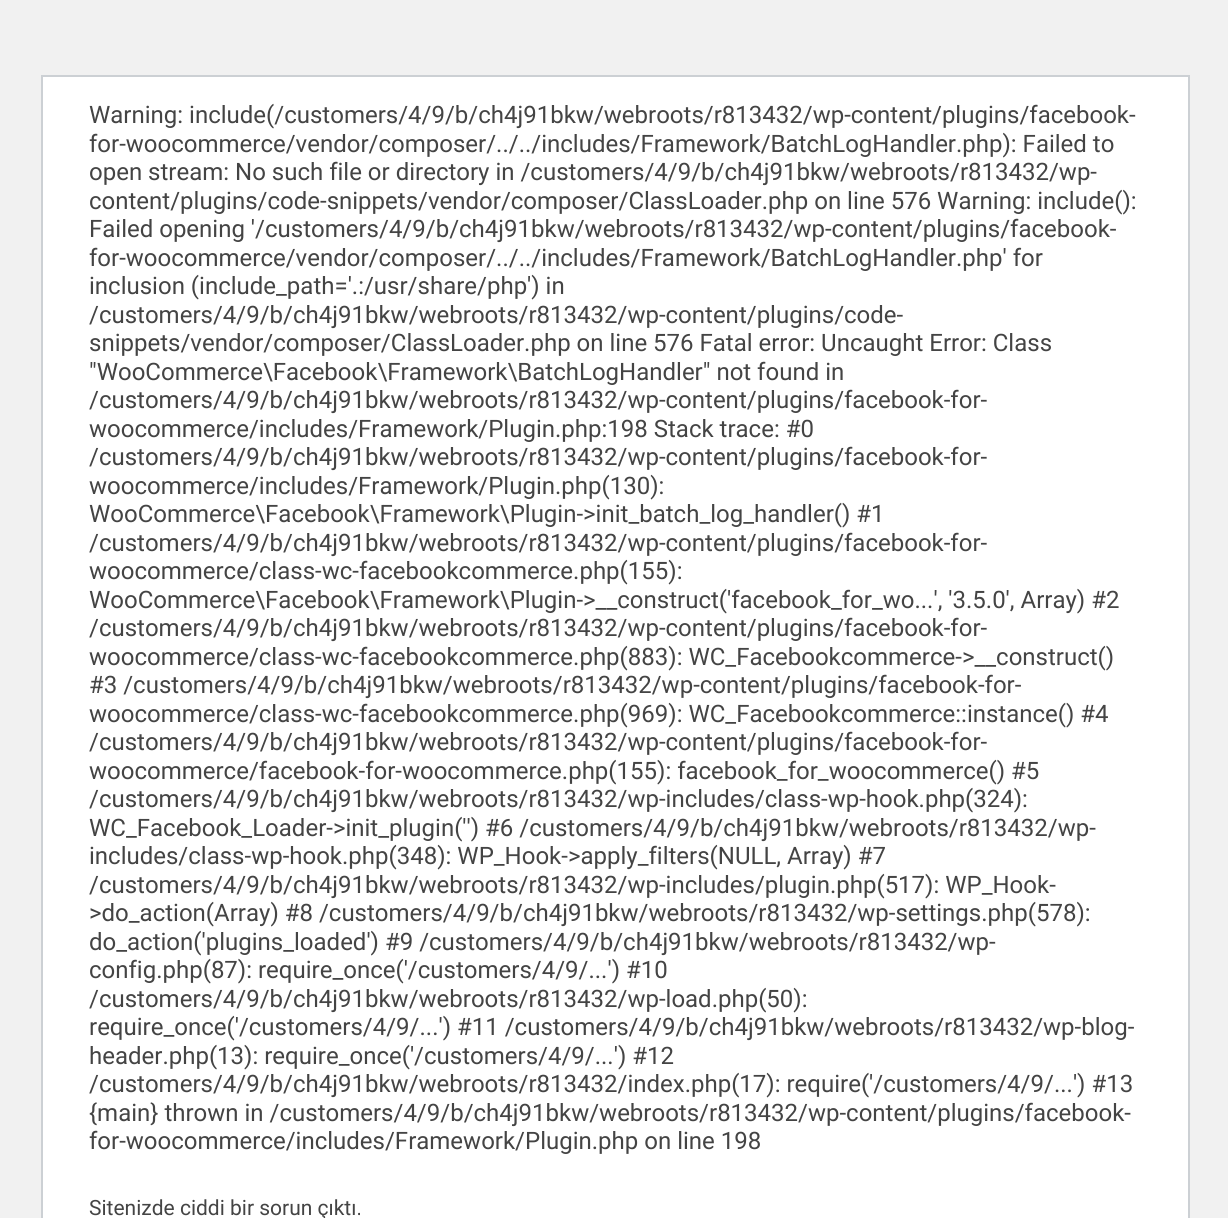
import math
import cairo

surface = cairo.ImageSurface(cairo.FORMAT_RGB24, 1228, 1218)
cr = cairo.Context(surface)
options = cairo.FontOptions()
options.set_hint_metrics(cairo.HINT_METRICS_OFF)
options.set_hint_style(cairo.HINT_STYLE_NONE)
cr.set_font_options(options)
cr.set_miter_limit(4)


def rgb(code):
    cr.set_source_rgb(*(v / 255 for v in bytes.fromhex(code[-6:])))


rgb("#f1f1f1")
cr.paint()
rgb("#ffffff")
cr.rectangle(42, 76, 1147, 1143)
cr.fill_preserve()
rgb("#ccd0d4")
cr.stroke()
cr.select_font_face("Roboto")
cr.set_font_size(24)
rgb("#444444")
for x, y, s in [
    (89, 123, "Warning: include(/customers/4/9/b/ch4j91bkw/webroots/r813432/wp-content/plugins/facebook-"),
    (89, 152, "for-woocommerce/vendor/composer/../../includes/Framework/BatchLogHandler.php): Failed to"),
    (89, 180, "open stream: No such file or directory in /customers/4/9/b/ch4j91bkw/webroots/r813432/wp-"),
    (89, 209, "content/plugins/code-snippets/vendor/composer/ClassLoader.php on line 576 Warning: include():"),
    (89, 237, "Failed opening '/customers/4/9/b/ch4j91bkw/webroots/r813432/wp-content/plugins/facebook-"),
    (89, 266, "for-woocommerce/vendor/composer/../../includes/Framework/BatchLogHandler.php' for"),
    (89, 294, "inclusion (include_path='.:/usr/share/php') in"),
    (89, 323, "/customers/4/9/b/ch4j91bkw/webroots/r813432/wp-content/plugins/code-"),
    (89, 351, "snippets/vendor/composer/ClassLoader.php on line 576 Fatal error: Uncaught Error: Class"),
    (89, 380, "\"WooCommerce\\Facebook\\Framework\\BatchLogHandler\" not found in"),
    (89, 408, "/customers/4/9/b/ch4j91bkw/webroots/r813432/wp-content/plugins/facebook-for-"),
    (89, 437, "woocommerce/includes/Framework/Plugin.php:198 Stack trace: #0"),
    (89, 465, "/customers/4/9/b/ch4j91bkw/webroots/r813432/wp-content/plugins/facebook-for-"),
    (89, 494, "woocommerce/includes/Framework/Plugin.php(130):"),
    (89, 522, "WooCommerce\\Facebook\\Framework\\Plugin->init_batch_log_handler() #1"),
    (89, 551, "/customers/4/9/b/ch4j91bkw/webroots/r813432/wp-content/plugins/facebook-for-"),
    (89, 579, "woocommerce/class-wc-facebookcommerce.php(155):"),
    (89, 608, "WooCommerce\\Facebook\\Framework\\Plugin->__construct('facebook_for_wo...', '3.5.0', Array) #2"),
    (89, 636, "/customers/4/9/b/ch4j91bkw/webroots/r813432/wp-content/plugins/facebook-for-"),
    (89, 665, "woocommerce/class-wc-facebookcommerce.php(883): WC_Facebookcommerce->__construct()"),
    (89, 693, "#3 /customers/4/9/b/ch4j91bkw/webroots/r813432/wp-content/plugins/facebook-for-"),
    (89, 722, "woocommerce/class-wc-facebookcommerce.php(969): WC_Facebookcommerce::instance() #4"),
    (89, 750, "/customers/4/9/b/ch4j91bkw/webroots/r813432/wp-content/plugins/facebook-for-"),
    (89, 779, "woocommerce/facebook-for-woocommerce.php(155): facebook_for_woocommerce() #5"),
    (89, 807, "/customers/4/9/b/ch4j91bkw/webroots/r813432/wp-includes/class-wp-hook.php(324):"),
    (89, 836, "WC_Facebook_Loader->init_plugin('') #6 /customers/4/9/b/ch4j91bkw/webroots/r813432/wp-"),
    (89, 864, "includes/class-wp-hook.php(348): WP_Hook->apply_filters(NULL, Array) #7"),
    (89, 893, "/customers/4/9/b/ch4j91bkw/webroots/r813432/wp-includes/plugin.php(517): WP_Hook-"),
    (89, 921, ">do_action(Array) #8 /customers/4/9/b/ch4j91bkw/webroots/r813432/wp-settings.php(578):"),
    (89, 950, "do_action('plugins_loaded') #9 /customers/4/9/b/ch4j91bkw/webroots/r813432/wp-"),
    (89, 978, "config.php(87): require_once('/customers/4/9/...') #10"),
    (89, 1007, "/customers/4/9/b/ch4j91bkw/webroots/r813432/wp-load.php(50):"),
    (89, 1035, "require_once('/customers/4/9/...') #11 /customers/4/9/b/ch4j91bkw/webroots/r813432/wp-blog-"),
    (89, 1064, "header.php(13): require_once('/customers/4/9/...') #12"),
    (89, 1092, "/customers/4/9/b/ch4j91bkw/webroots/r813432/index.php(17): require('/customers/4/9/...') #13"),
    (89, 1121, "{main} thrown in /customers/4/9/b/ch4j91bkw/webroots/r813432/wp-content/plugins/facebook-"),
    (89, 1149, "for-woocommerce/includes/Framework/Plugin.php on line 198"),
]:
    cr.move_to(x, y)
    cr.show_text(s)
cr.set_font_size(21)
cr.move_to(89, 1215)
cr.show_text("Sitenizde ciddi bir sorun çıktı.")
surface.write_to_png("page.png")
